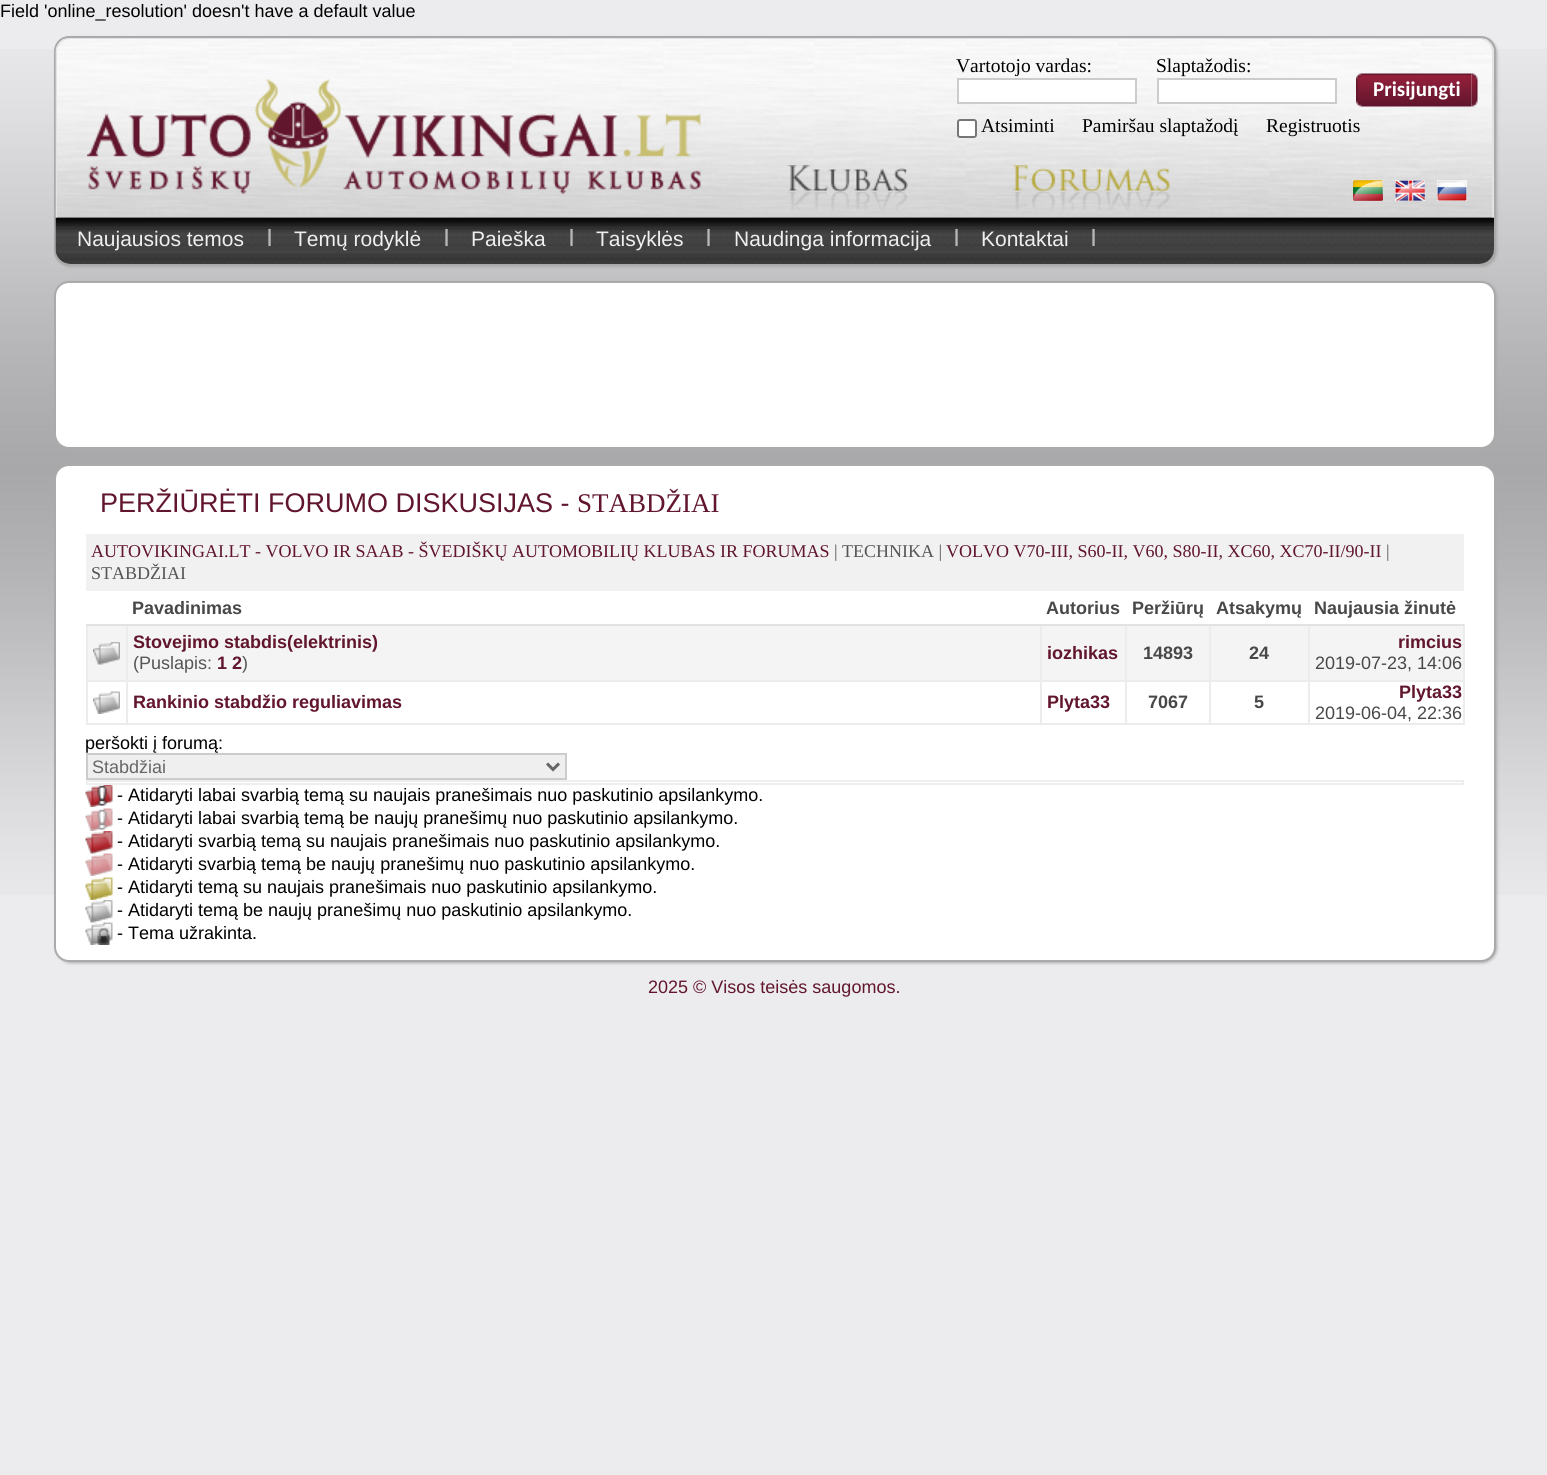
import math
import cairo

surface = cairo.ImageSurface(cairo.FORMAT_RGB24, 1547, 1475)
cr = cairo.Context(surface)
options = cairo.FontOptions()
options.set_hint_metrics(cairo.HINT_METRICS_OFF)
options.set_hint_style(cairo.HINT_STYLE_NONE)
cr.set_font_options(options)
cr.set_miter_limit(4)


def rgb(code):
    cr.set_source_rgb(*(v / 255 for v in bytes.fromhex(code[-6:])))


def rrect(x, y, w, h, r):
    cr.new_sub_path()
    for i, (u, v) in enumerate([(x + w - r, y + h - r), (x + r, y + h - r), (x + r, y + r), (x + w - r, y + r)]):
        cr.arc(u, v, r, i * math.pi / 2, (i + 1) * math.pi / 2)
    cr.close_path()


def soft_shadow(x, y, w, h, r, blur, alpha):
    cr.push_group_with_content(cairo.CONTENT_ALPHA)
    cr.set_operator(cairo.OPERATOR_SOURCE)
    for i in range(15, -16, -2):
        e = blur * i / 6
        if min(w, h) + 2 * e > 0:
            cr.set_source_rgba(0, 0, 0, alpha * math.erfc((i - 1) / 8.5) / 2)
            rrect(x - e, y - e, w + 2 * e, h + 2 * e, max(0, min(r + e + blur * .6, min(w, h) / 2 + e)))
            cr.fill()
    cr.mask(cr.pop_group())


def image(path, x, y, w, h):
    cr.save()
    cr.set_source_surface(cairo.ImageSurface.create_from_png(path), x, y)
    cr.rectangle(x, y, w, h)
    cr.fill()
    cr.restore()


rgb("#ececee")
cr.paint()
image("img/1.png", 0, 49, 1547, 846)
rgb("#aaaaaa")
soft_shadow(56, 38, 1441, 229, 15, 1.5, 1)
rrect(55, 37, 1440, 228, 14)
rgb("#aaaaaa")
cr.stroke()
image("img/2.png", 55, 39, 1439, 178)
rgb("#e3e3e3")
cr.set_fill_rule(cairo.FILL_RULE_EVEN_ODD)
cr.new_path()
cr.move_to(70, 38)
cr.line_to(1479, 38)
cr.curve_to(1487, 38, 1494, 44, 1494, 52)
cr.line_to(1494, 218)
cr.line_to(56, 218)
cr.line_to(56, 52)
cr.curve_to(56, 44, 62, 38, 70, 38)
cr.close_path()
cr.move_to(70, 39)
cr.line_to(1479, 39)
cr.curve_to(1486, 39, 1492, 45, 1492, 52)
cr.line_to(1492, 218)
cr.line_to(57, 218)
cr.line_to(57, 52)
cr.curve_to(57, 45, 63, 39, 70, 39)
cr.close_path()
cr.fill()
image("img/3.png", 87, 79, 614, 115)
rgb("#ffffff")
cr.rectangle(958, 79, 178, 24)
cr.fill_preserve()
rgb("#cccccc")
cr.stroke()
rgb("#ffffff")
cr.rectangle(1158, 79, 178, 24)
cr.fill_preserve()
rgb("#cccccc")
cr.stroke()
image("img/4.png", 1356, 73, 6, 34)
image("img/5.png", 1362, 73, 110, 34)
image("img/6.png", 1471, 73, 7, 34)
rgb("#ffffff")
rrect(958, 120, 18, 17, 2)
cr.fill_preserve()
rgb("#767676")
cr.stroke()
image("img/7.png", 787, 165, 121, 46)
image("img/8.png", 1012, 165, 158, 46)
image("img/9.png", 1353, 180, 30, 21)
image("img/10.png", 1395, 180, 30, 21)
image("img/11.png", 1437, 180, 30, 21)
image("img/12.png", 55, 217, 1439, 47)
rgb("#aaaaaa")
soft_shadow(56, 282, 1441, 168, 15, 1.5, 1)
rgb("#ffffff")
rrect(55, 282, 1440, 166, 14)
cr.fill_preserve()
rgb("#aaaaaa")
cr.stroke()
rgb("#aaaaaa")
soft_shadow(56, 465, 1441, 498, 15, 1.5, 1)
rgb("#ffffff")
rrect(55, 465, 1440, 496, 14)
cr.fill_preserve()
rgb("#aaaaaa")
cr.stroke()
for x, y, w, h, color in [
    (86, 534, 1378, 57, "#f1f1f1"),
    (86, 680, 1378, 2, "#ececec"),
    (1463, 624, 2, 101, "#ececec"),
    (86, 723, 1378, 2, "#ececec"),
    (86, 624, 2, 101, "#ececec"),
    (126, 624, 2, 101, "#ececec"),
    (1040, 624, 2, 101, "#ececec"),
    (1125, 624, 2, 101, "#ececec"),
    (1209, 624, 2, 101, "#ececec"),
    (1308, 624, 2, 101, "#ececec"),
    (86, 624, 1378, 2, "#e2e2e2"),
    (88, 626, 38, 54, "#f4f4f4"),
]:
    rgb(color)
    cr.rectangle(x, y, w, h)
    cr.fill()
image("img/13.png", 93, 642, 27, 23)
for x, y, w, h, color in [
    (128, 626, 912, 54, "#f4f4f4"),
    (1042, 626, 83, 54, "#f4f4f4"),
    (1127, 626, 82, 54, "#f4f4f4"),
    (1211, 626, 97, 54, "#f4f4f4"),
    (1310, 626, 153, 54, "#f4f4f4"),
]:
    rgb(color)
    cr.rectangle(x, y, w, h)
    cr.fill()
image("img/14.png", 93, 691, 27, 23)
rgb("#efefef")
cr.rectangle(87, 754, 479, 25)
cr.fill_preserve()
rgb("#cccccc")
cr.stroke()
cr.new_path()
cr.move_to(547, 763.5)
cr.line_to(553, 769.5)
cr.line_to(559, 763.5)
rgb("#666666")
cr.set_line_width(3)
cr.stroke()
cr.rectangle(87, 781, 1376, 3)
rgb("#eeeeee")
cr.set_line_width(2)
cr.stroke()
image("img/15.png", 85, 785, 28, 22)
image("img/16.png", 85, 808, 28, 23)
image("img/17.png", 85, 831, 28, 23)
image("img/18.png", 85, 853, 28, 23)
image("img/19.png", 85, 877, 28, 23)
image("img/20.png", 85, 900, 28, 23)
image("img/21.png", 85, 922, 28, 23)
cr.select_font_face("Liberation Sans")
cr.set_font_size(18)
rgb("#000000")
cr.move_to(0, 17)
cr.show_text("Field 'online_resolution' doesn't have a default value")
cr.select_font_face("Liberation Serif")
cr.set_font_size(19.5)
cr.move_to(956, 72)
cr.show_text("Vartotojo vardas:")
cr.move_to(1156, 72)
cr.show_text("Slaptažodis:")
cr.select_font_face("Carlito", cairo.FONT_SLANT_NORMAL, cairo.FONT_WEIGHT_BOLD)
cr.set_font_size(21)
rgb("#ffffff")
cr.move_to(1373, 96)
cr.show_text("Prisijungti")
cr.select_font_face("Liberation Serif")
cr.set_font_size(19.5)
rgb("#000000")
for x, y, s in [
    (981, 132, "Atsiminti"),
    (1082, 132, "Pamiršau slaptažodį"),
    (1266, 132, "Registruotis"),
]:
    cr.move_to(x, y)
    cr.show_text(s)
cr.select_font_face("Liberation Sans")
cr.set_font_size(21)
rgb("#efefef")
cr.move_to(77, 246)
cr.show_text("Naujausios temos")
cr.select_font_face("Liberation Sans", cairo.FONT_SLANT_NORMAL, cairo.FONT_WEIGHT_BOLD)
cr.set_font_size(18)
rgb("#b8b8b8")
cr.move_to(267, 242)
cr.show_text("|")
cr.select_font_face("Liberation Sans")
cr.set_font_size(21)
rgb("#efefef")
cr.move_to(294, 246)
cr.show_text("Temų rodyklė")
cr.select_font_face("Liberation Sans", cairo.FONT_SLANT_NORMAL, cairo.FONT_WEIGHT_BOLD)
cr.set_font_size(18)
rgb("#b8b8b8")
cr.move_to(444, 242)
cr.show_text("|")
cr.select_font_face("Liberation Sans")
cr.set_font_size(21)
rgb("#efefef")
cr.move_to(471, 246)
cr.show_text("Paieška")
cr.select_font_face("Liberation Sans", cairo.FONT_SLANT_NORMAL, cairo.FONT_WEIGHT_BOLD)
cr.set_font_size(18)
rgb("#b8b8b8")
cr.move_to(569, 242)
cr.show_text("|")
cr.select_font_face("Liberation Sans")
cr.set_font_size(21)
rgb("#efefef")
cr.move_to(596, 246)
cr.show_text("Taisyklės")
cr.select_font_face("Liberation Sans", cairo.FONT_SLANT_NORMAL, cairo.FONT_WEIGHT_BOLD)
cr.set_font_size(18)
rgb("#b8b8b8")
cr.move_to(706, 242)
cr.show_text("|")
cr.select_font_face("Liberation Sans")
cr.set_font_size(21)
rgb("#efefef")
cr.move_to(734, 246)
cr.show_text("Naudinga informacija")
cr.select_font_face("Liberation Sans", cairo.FONT_SLANT_NORMAL, cairo.FONT_WEIGHT_BOLD)
cr.set_font_size(18)
rgb("#b8b8b8")
cr.move_to(954, 242)
cr.show_text("|")
cr.select_font_face("Liberation Sans")
cr.set_font_size(21)
rgb("#efefef")
cr.move_to(981, 246)
cr.show_text("Kontaktai")
cr.select_font_face("Liberation Sans", cairo.FONT_SLANT_NORMAL, cairo.FONT_WEIGHT_BOLD)
cr.set_font_size(18)
rgb("#b8b8b8")
cr.move_to(1091, 242)
cr.show_text("|")
cr.select_font_face("Liberation Sans")
cr.set_font_size(27)
rgb("#61162d")
cr.move_to(100, 512)
cr.show_text("PERŽIŪRĖTI FORUMO DISKUSIJAS -")
cr.select_font_face("Liberation Serif")
cr.move_to(577, 512)
cr.show_text("STABDŽIAI")
cr.set_font_size(18)
cr.move_to(91, 557)
cr.show_text("AUTOVIKINGAI.LT - VOLVO IR SAAB - ŠVEDIŠKŲ AUTOMOBILIŲ KLUBAS IR FORUMAS")
rgb("#555555")
cr.move_to(834, 557)
cr.show_text("| TECHNIKA |")
rgb("#61162d")
cr.move_to(946, 557)
cr.show_text("VOLVO V70-III, S60-II, V60, S80-II, XC60, XC70-II/90-II")
rgb("#555555")
cr.move_to(1386, 557)
cr.show_text("|")
cr.move_to(91, 579)
cr.show_text("STABDŽIAI")
cr.select_font_face("Liberation Sans", cairo.FONT_SLANT_NORMAL, cairo.FONT_WEIGHT_BOLD)
rgb("#484848")
for x, y, s in [
    (132, 614, "Pavadinimas"),
    (1046, 614, "Autorius"),
    (1132, 614, "Peržiūrų"),
    (1216, 614, "Atsakymų"),
    (1314, 614, "Naujausia žinutė"),
]:
    cr.move_to(x, y)
    cr.show_text(s)
rgb("#61162d")
cr.move_to(133, 648)
cr.show_text("Stovejimo stabdis(elektrinis)")
cr.select_font_face("Liberation Sans")
rgb("#555555")
cr.move_to(133, 669)
cr.show_text("(Puslapis:")
cr.select_font_face("Liberation Sans", cairo.FONT_SLANT_NORMAL, cairo.FONT_WEIGHT_BOLD)
rgb("#61162d")
cr.move_to(217, 669)
cr.show_text("1 2")
cr.select_font_face("Liberation Sans")
rgb("#555555")
cr.move_to(242, 669)
cr.show_text(")")
cr.select_font_face("Liberation Sans", cairo.FONT_SLANT_NORMAL, cairo.FONT_WEIGHT_BOLD)
rgb("#61162d")
cr.move_to(1047, 659)
cr.show_text("iozhikas")
rgb("#484848")
cr.move_to(1143, 659)
cr.show_text("14893")
cr.move_to(1249, 659)
cr.show_text("24")
rgb("#61162d")
cr.move_to(1398, 648)
cr.show_text("rimcius")
cr.select_font_face("Liberation Sans")
rgb("#484848")
cr.move_to(1315, 669)
cr.show_text("2019-07-23, 14:06")
cr.select_font_face("Liberation Sans", cairo.FONT_SLANT_NORMAL, cairo.FONT_WEIGHT_BOLD)
rgb("#61162d")
cr.move_to(133, 708)
cr.show_text("Rankinio stabdžio reguliavimas")
cr.move_to(1047, 708)
cr.show_text("Plyta33")
rgb("#484848")
cr.move_to(1148, 708)
cr.show_text("7067")
cr.move_to(1254, 708)
cr.show_text("5")
rgb("#61162d")
cr.move_to(1399, 698)
cr.show_text("Plyta33")
cr.select_font_face("Liberation Sans")
rgb("#484848")
cr.move_to(1315, 719)
cr.show_text("2019-06-04, 22:36")
rgb("#000000")
cr.move_to(85, 749)
cr.show_text("peršokti į forumą:")
rgb("#666666")
cr.move_to(92, 773)
cr.show_text("Stabdžiai")
rgb("#000000")
for x, y, s in [
    (117, 801, "- Atidaryti labai svarbią temą su naujais pranešimais nuo paskutinio apsilankymo."),
    (117, 824, "- Atidaryti labai svarbią temą be naujų pranešimų nuo paskutinio apsilankymo."),
    (117, 847, "- Atidaryti svarbią temą su naujais pranešimais nuo paskutinio apsilankymo."),
    (117, 870, "- Atidaryti svarbią temą be naujų pranešimų nuo paskutinio apsilankymo."),
    (117, 893, "- Atidaryti temą su naujais pranešimais nuo paskutinio apsilankymo."),
    (117, 916, "- Atidaryti temą be naujų pranešimų nuo paskutinio apsilankymo."),
    (117, 939, "- Tema užrakinta."),
]:
    cr.move_to(x, y)
    cr.show_text(s)
rgb("#61162d")
cr.move_to(648, 993)
cr.show_text("2025 © Visos teisės saugomos.")
surface.write_to_png("page.png")
